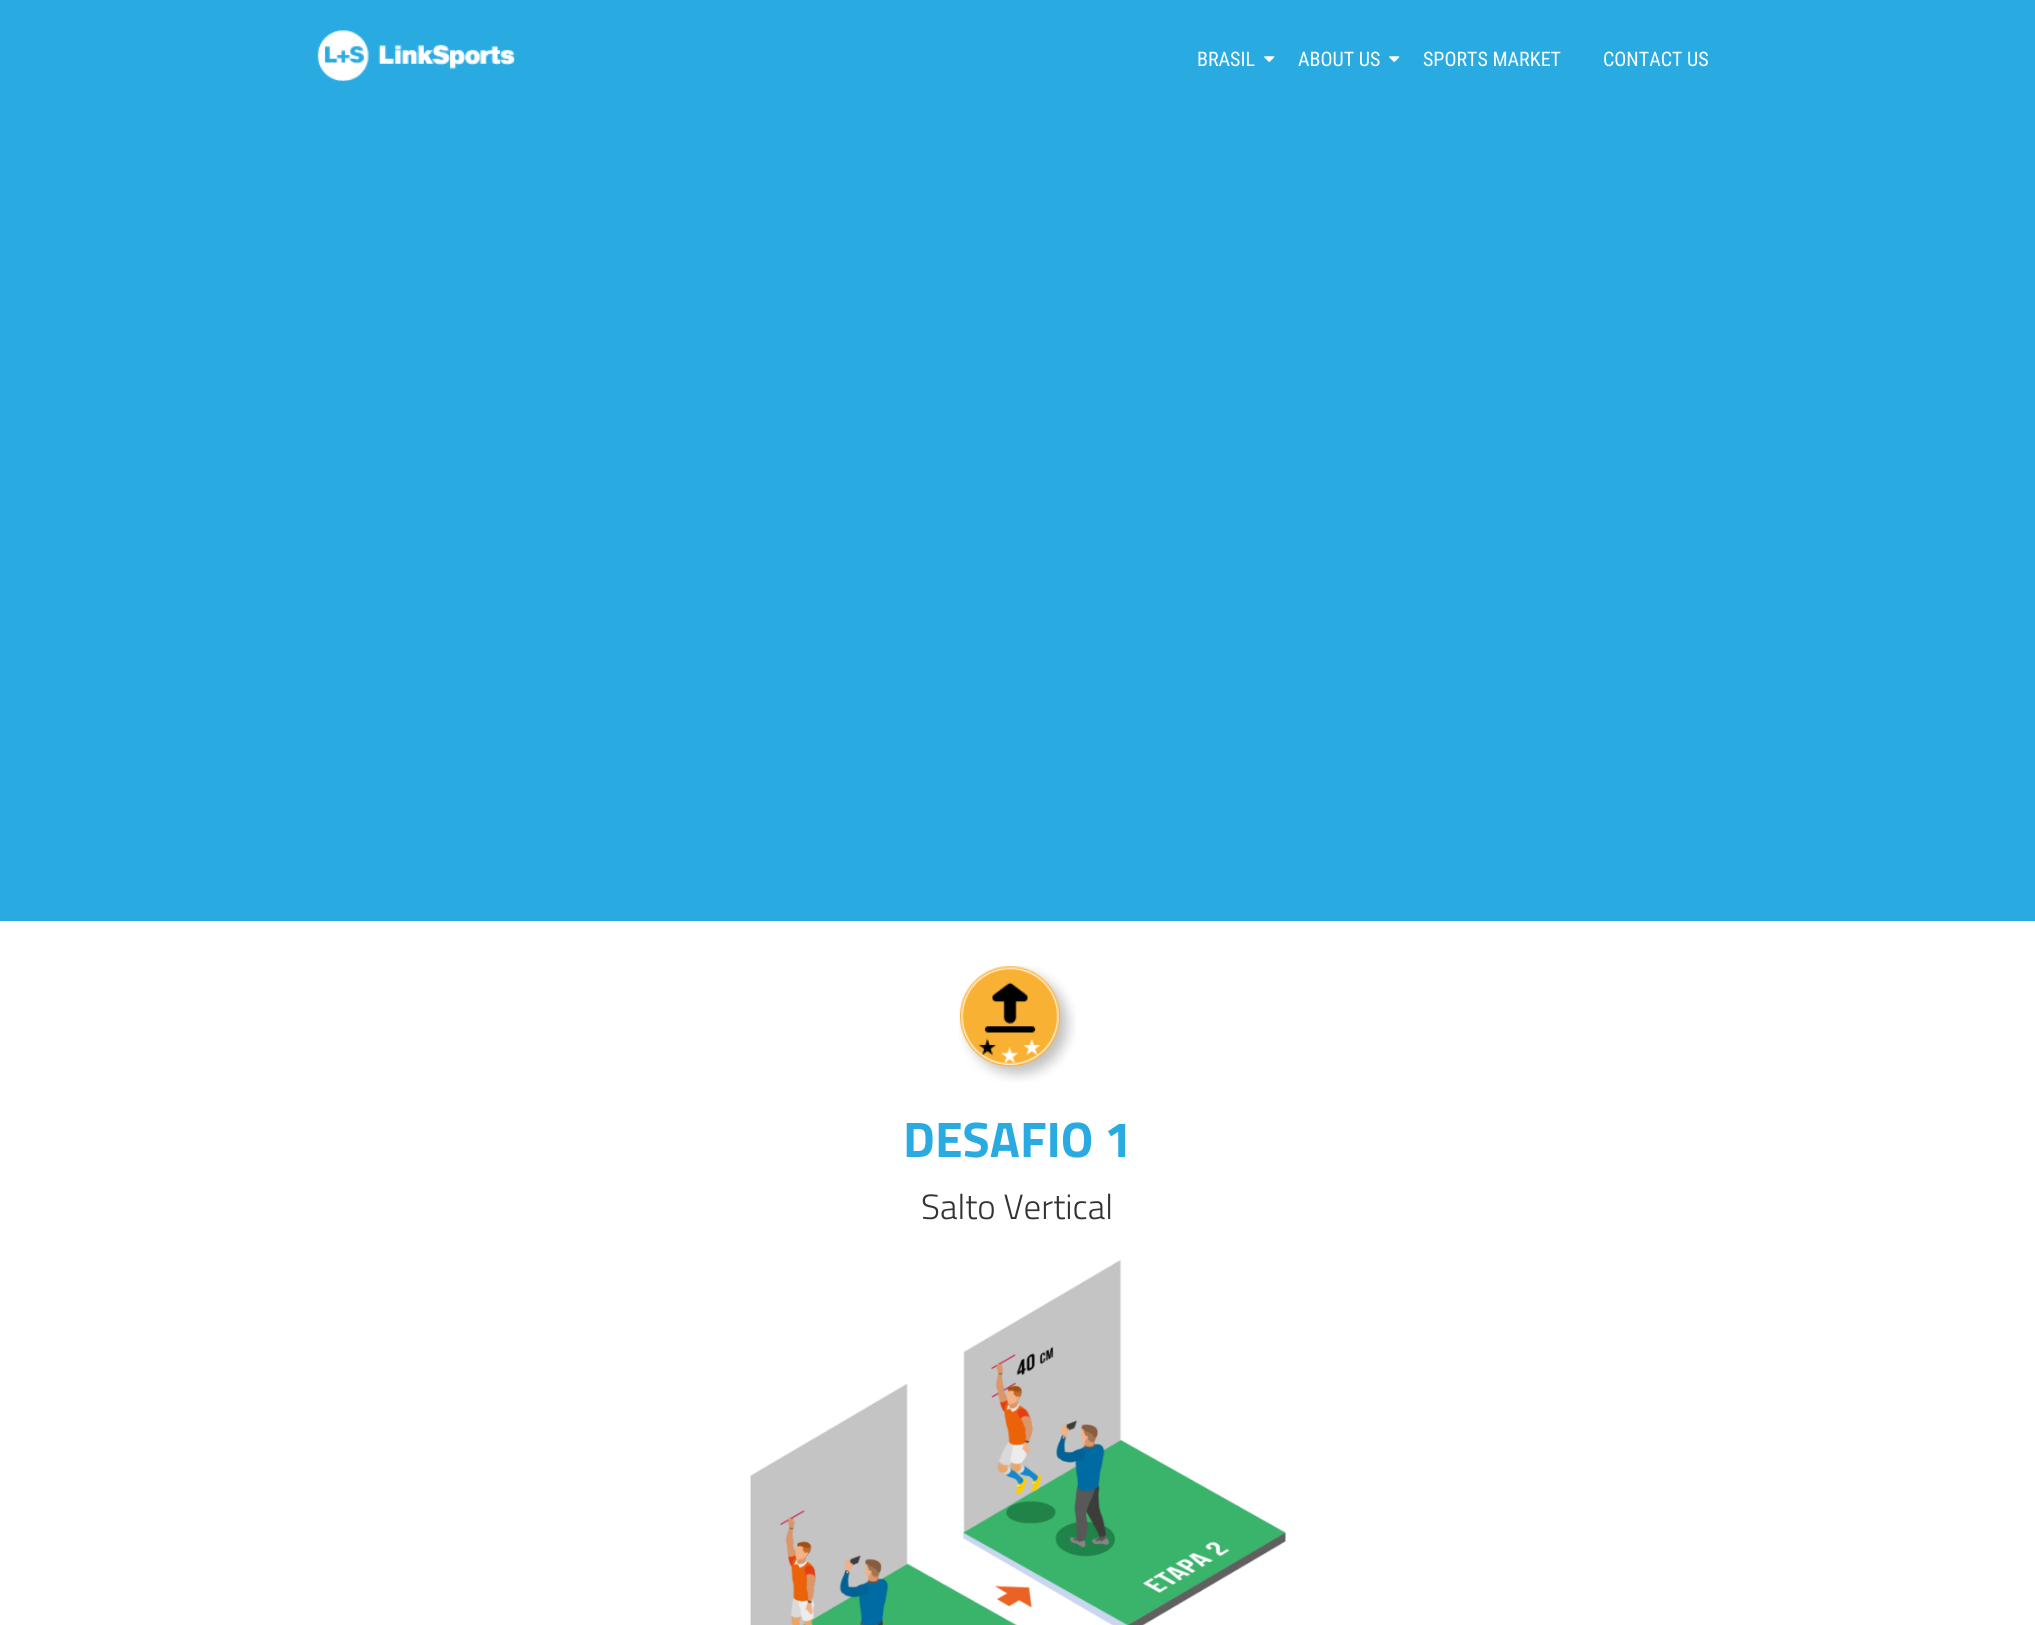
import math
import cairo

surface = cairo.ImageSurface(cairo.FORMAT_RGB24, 2035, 1625)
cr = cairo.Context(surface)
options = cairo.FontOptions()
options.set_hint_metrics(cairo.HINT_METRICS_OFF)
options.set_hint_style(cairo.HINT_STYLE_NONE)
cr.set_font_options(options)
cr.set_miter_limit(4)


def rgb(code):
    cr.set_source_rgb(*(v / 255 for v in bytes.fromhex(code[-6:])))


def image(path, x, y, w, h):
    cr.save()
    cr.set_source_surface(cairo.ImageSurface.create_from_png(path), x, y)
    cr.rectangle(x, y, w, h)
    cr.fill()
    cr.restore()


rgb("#ffffff")
cr.paint()
rgb("#29abe2")
cr.rectangle(0, 0, 2035, 921)
cr.fill()
image("img/1.png", 317, 30, 198, 52)
image("img/2.png", 1264, 56, 11, 6)
image("img/2.png", 1389, 56, 11, 6)
image("img/3.png", 959, 966, 117, 116)
image("img/4.png", 750, 1260, 536, 365)
cr.select_font_face("Roboto Condensed")
cr.set_font_size(20)
rgb("#ffffff")
for x, y, s in [
    (1197, 66, "BRASIL"),
    (1298, 66, "ABOUT US"),
    (1423, 66, "SPORTS MARKET"),
    (1603, 66, "CONTACT US"),
]:
    cr.move_to(x, y)
    cr.show_text(s)
cr.select_font_face("Titillium Web", cairo.FONT_SLANT_NORMAL, cairo.FONT_WEIGHT_BOLD)
cr.set_font_size(50)
rgb("#29abe2")
cr.move_to(903, 1157)
cr.show_text("DESAFIO 1")
cr.select_font_face("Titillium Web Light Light")
cr.set_font_size(35)
rgb("#333333")
cr.move_to(921, 1219)
cr.show_text("Salto Vertical")
surface.write_to_png("page.png")
